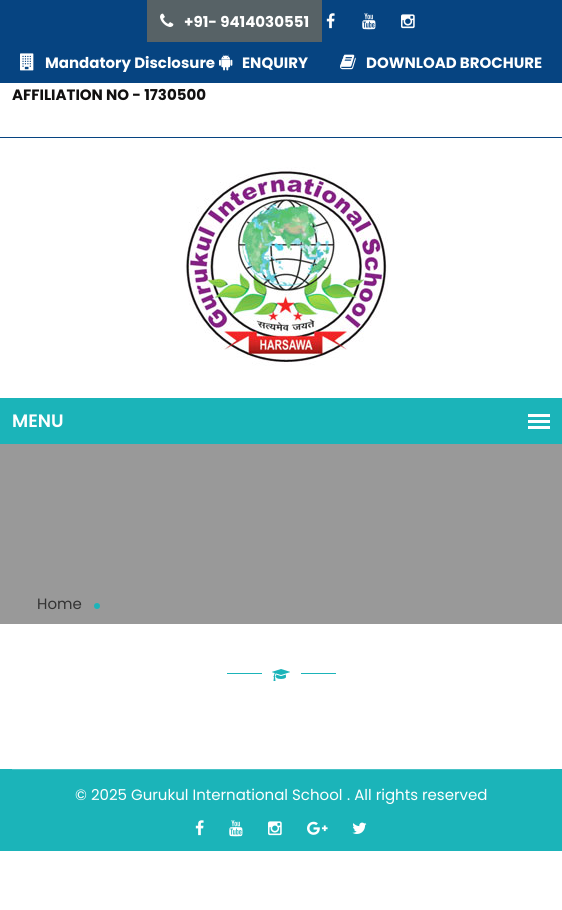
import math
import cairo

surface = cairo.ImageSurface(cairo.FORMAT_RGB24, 562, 910)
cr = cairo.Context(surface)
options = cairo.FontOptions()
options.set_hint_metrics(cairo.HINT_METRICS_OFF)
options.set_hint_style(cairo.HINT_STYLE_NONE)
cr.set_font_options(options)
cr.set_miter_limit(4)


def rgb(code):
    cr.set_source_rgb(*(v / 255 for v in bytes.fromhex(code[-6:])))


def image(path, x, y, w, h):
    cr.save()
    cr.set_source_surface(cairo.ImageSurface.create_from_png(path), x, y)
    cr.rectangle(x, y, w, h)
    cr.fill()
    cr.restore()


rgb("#ffffff")
cr.paint()
rgb("#064481")
cr.rectangle(0, 0, 562, 83)
cr.fill()
rgb("#576266")
cr.rectangle(147, 0, 175, 42)
cr.fill()
image("img/1.png", 160, 13, 14, 14)
image("img/2.png", 326, 13, 9, 16)
image("img/3.png", 362, 13, 14, 17)
image("img/4.png", 401, 14, 14, 15)
image("img/5.png", 20, 53, 14, 18)
image("img/6.png", 219, 54, 14, 17)
image("img/7.png", 340, 54, 16, 16)
rgb("#064481")
cr.rectangle(0, 137, 562, 1)
cr.fill()
image("img/8.png", 185, 167, 203, 199)
for x, y, w, h, color in [
    (0, 398, 562, 46, "#1bb4b9"),
    (528, 414, 22, 3, "#ffffff"),
    (528, 420, 22, 3, "#ffffff"),
    (528, 426, 22, 3, "#ffffff"),
    (0, 444, 562, 180, "#999999"),
]:
    rgb(color)
    cr.rectangle(x, y, w, h)
    cr.fill()
rgb("#1bb4b9")
cr.arc(97, 606, 3, 0, 2 * math.pi)
cr.fill()
cr.rectangle(227, 673, 109, 1)
cr.fill()
rgb("#ffffff")
cr.rectangle(262, 673, 39, 1)
cr.fill()
image("img/9.png", 272, 669, 18, 12)
rgb("#1bb4b9")
cr.rectangle(0, 769, 562, 82)
cr.fill()
rgb("#49c3c7")
cr.rectangle(12, 769, 538, 1)
cr.fill()
image("img/10.png", 195, 820, 9, 16)
image("img/11.png", 229, 820, 14, 17)
image("img/12.png", 268, 821, 14, 15)
image("img/13.png", 307, 821, 21, 14)
image("img/14.png", 352, 822, 15, 12)
cr.select_font_face("Poppins", cairo.FONT_SLANT_NORMAL, cairo.FONT_WEIGHT_BOLD)
cr.set_font_size(15)
rgb("#ffffff")
for x, y, s in [
    (184, 27, "+91- 9414030551"),
    (45, 68, "Mandatory Disclosure"),
    (242, 68, "ENQUIRY"),
    (366, 68, "DOWNLOAD BROCHURE"),
]:
    cr.move_to(x, y)
    cr.show_text(s)
rgb("#111010")
cr.move_to(12, 100)
cr.show_text("AFFILIATION NO - 1730500")
cr.select_font_face("Poppins SemiBold")
cr.set_font_size(18)
rgb("#ffffff")
cr.move_to(12, 427)
cr.show_text("MENU")
cr.select_font_face("Poppins")
cr.set_font_size(15)
rgb("#333333")
cr.move_to(37, 609)
cr.show_text("Home")
rgb("#ffffff")
cr.move_to(75, 800)
cr.show_text("© 2025 Gurukul International School")
cr.move_to(347, 800)
cr.show_text(". All rights reserved")
surface.write_to_png("page.png")
